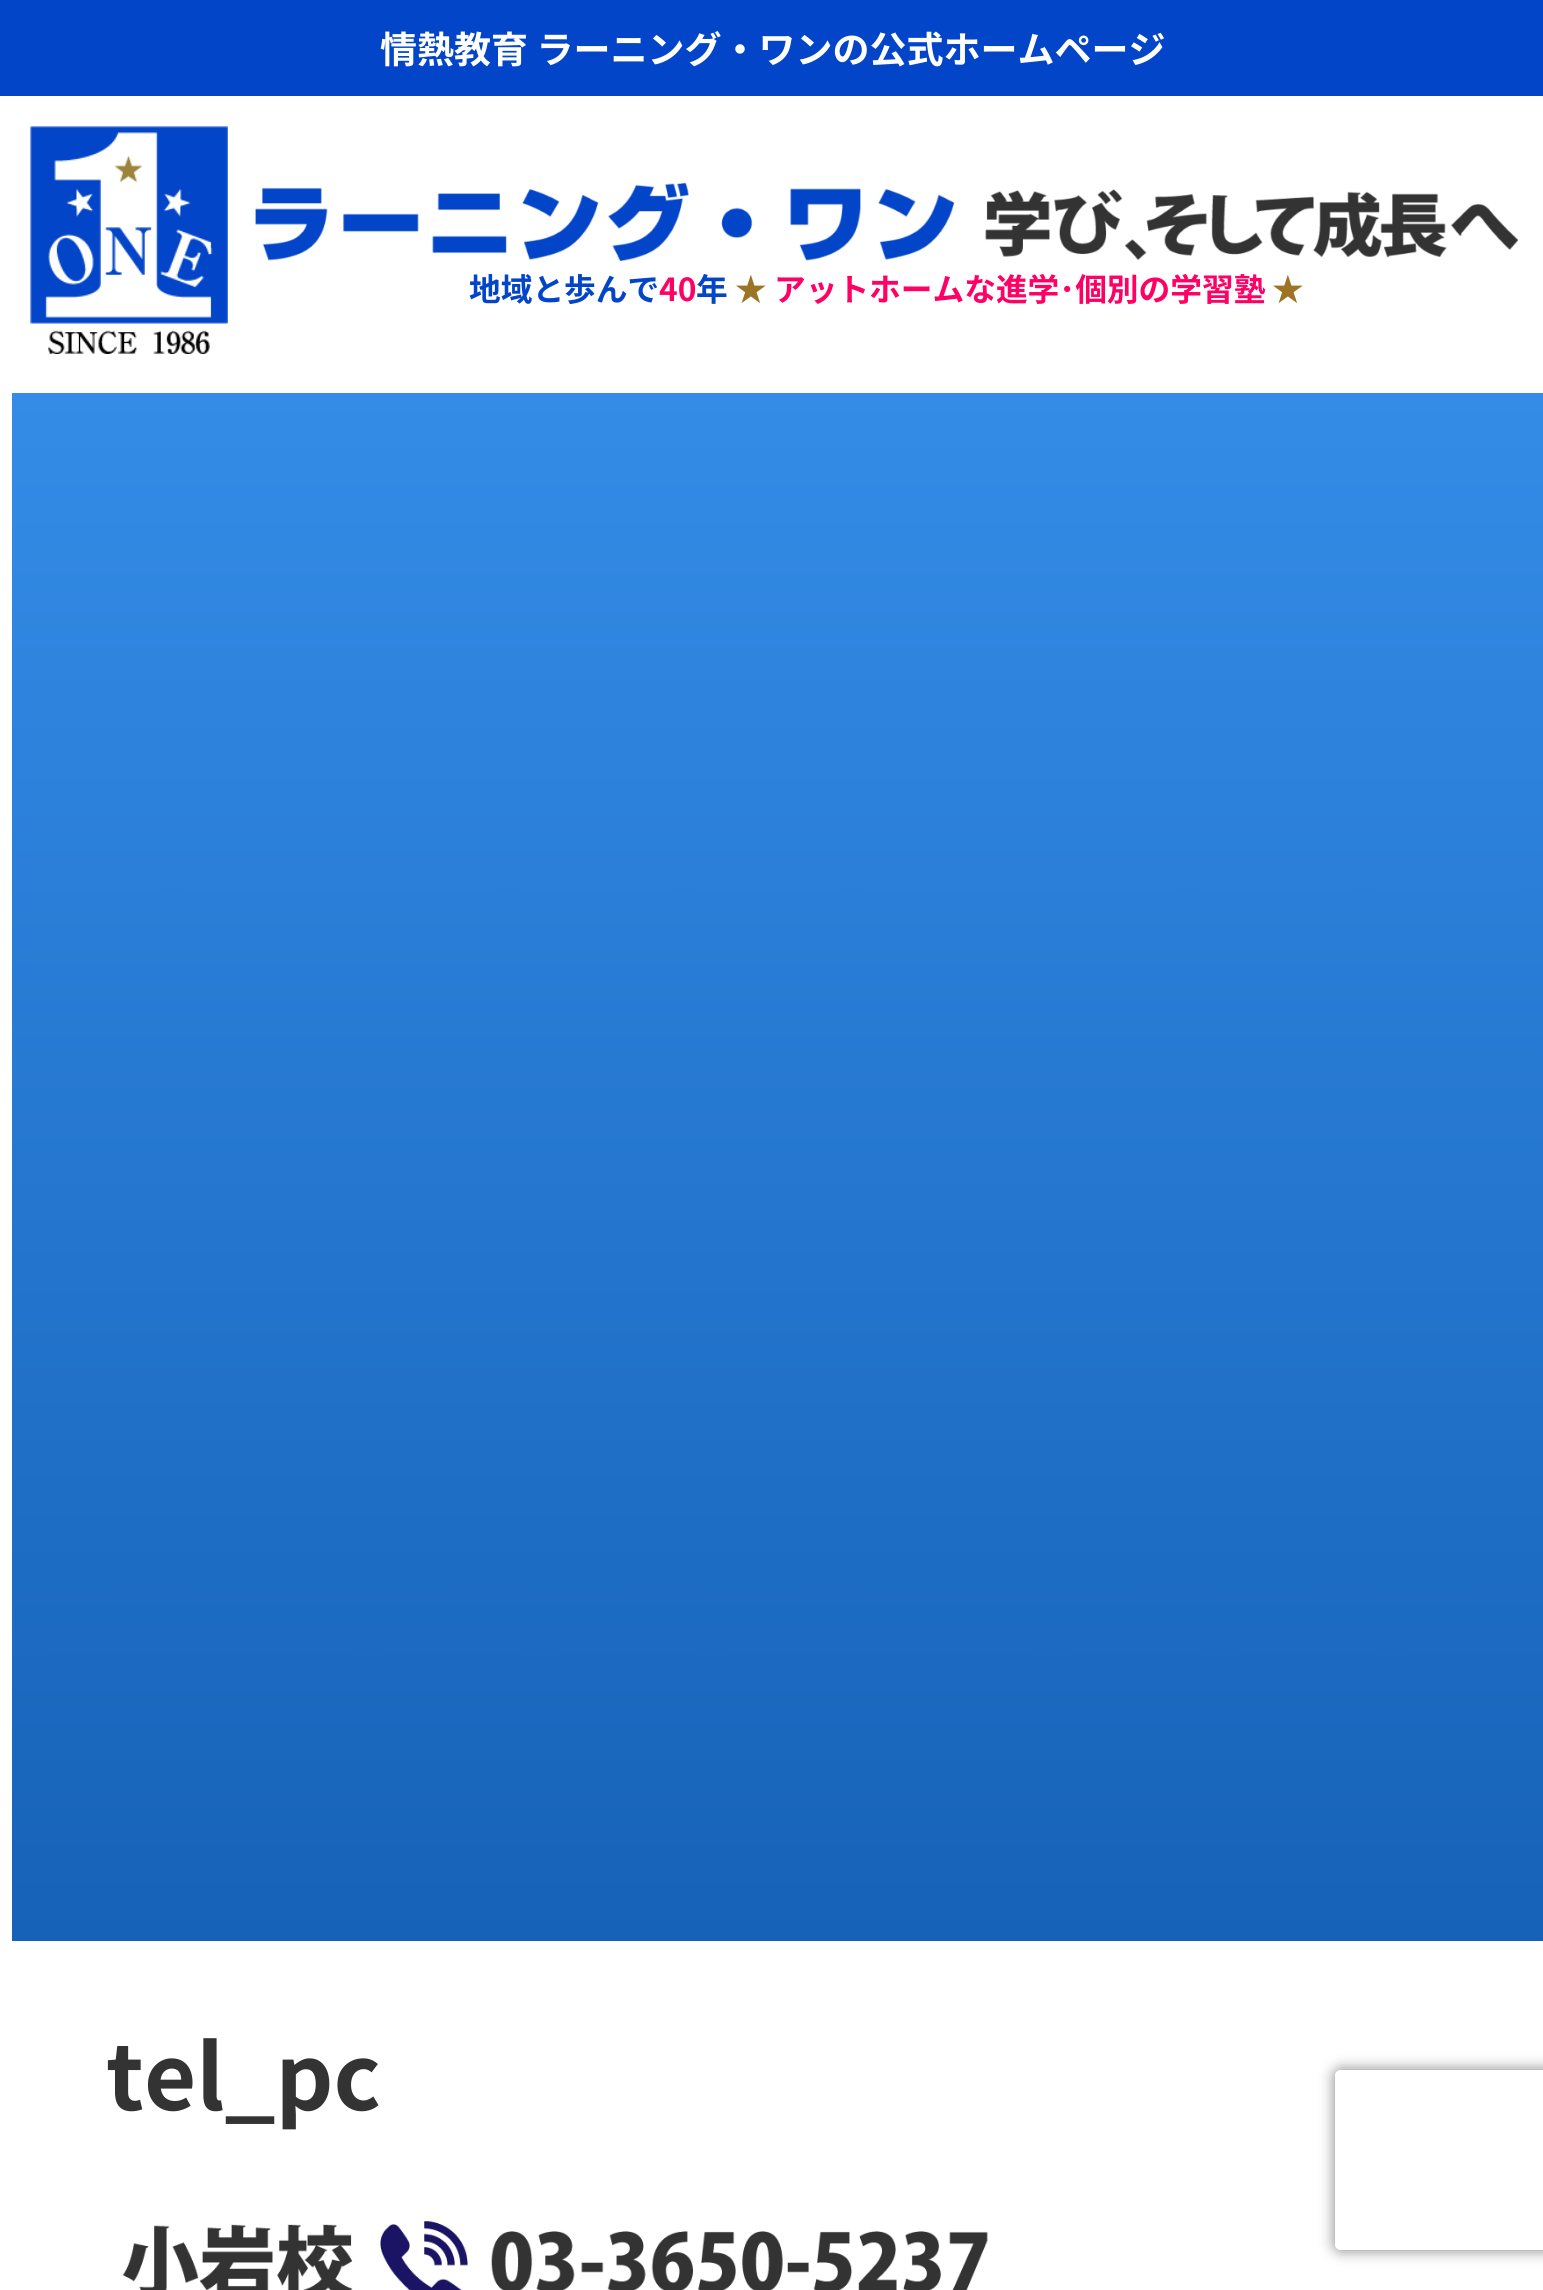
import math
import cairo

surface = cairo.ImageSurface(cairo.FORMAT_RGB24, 1543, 2290)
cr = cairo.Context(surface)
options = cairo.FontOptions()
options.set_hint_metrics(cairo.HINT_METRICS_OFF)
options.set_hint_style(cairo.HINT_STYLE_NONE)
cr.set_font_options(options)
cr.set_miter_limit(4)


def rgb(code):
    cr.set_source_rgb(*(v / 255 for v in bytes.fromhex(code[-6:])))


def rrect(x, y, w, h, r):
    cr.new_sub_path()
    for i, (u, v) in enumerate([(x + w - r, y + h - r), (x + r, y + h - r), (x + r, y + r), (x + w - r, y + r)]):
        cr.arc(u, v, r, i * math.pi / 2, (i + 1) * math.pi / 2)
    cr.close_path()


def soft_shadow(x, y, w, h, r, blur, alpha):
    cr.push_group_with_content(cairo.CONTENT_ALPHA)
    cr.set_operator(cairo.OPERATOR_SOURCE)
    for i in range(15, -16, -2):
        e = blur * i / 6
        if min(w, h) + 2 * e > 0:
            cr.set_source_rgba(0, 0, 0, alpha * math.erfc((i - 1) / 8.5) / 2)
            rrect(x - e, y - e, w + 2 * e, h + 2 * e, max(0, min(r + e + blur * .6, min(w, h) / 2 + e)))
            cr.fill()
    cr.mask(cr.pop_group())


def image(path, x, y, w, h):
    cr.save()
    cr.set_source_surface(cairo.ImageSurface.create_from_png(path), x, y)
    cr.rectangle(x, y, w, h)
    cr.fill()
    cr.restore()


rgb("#ffffff")
cr.paint()
rgb("#0245c8")
cr.rectangle(0, 0, 1543, 96)
cr.fill()
image("img/1.png", 30, 126, 198, 228)
image("img/2.png", 255, 183, 1263, 78)
gradient = cairo.LinearGradient(97, 393, 98, 1941)
gradient.add_color_stop_rgba(0, 0.204, 0.549, 0.902, 1)
gradient.add_color_stop_rgba(1, 0.086, 0.384, 0.722, 1)
cr.set_source(gradient)
cr.rectangle(12, 393, 171, 1548)
cr.fill()
gradient = cairo.LinearGradient(267, 393, 267, 1941)
gradient.add_color_stop_rgba(0, 0.204, 0.549, 0.902, 1)
gradient.add_color_stop_rgba(1, 0.086, 0.384, 0.722, 1)
cr.set_source(gradient)
cr.rectangle(183, 393, 168, 1548)
cr.fill()
gradient = cairo.LinearGradient(436, 393, 437, 1941)
gradient.add_color_stop_rgba(0, 0.204, 0.549, 0.902, 1)
gradient.add_color_stop_rgba(1, 0.086, 0.384, 0.722, 1)
cr.set_source(gradient)
cr.rectangle(351, 393, 171, 1548)
cr.fill()
gradient = cairo.LinearGradient(607, 393, 608, 1941)
gradient.add_color_stop_rgba(0, 0.204, 0.549, 0.902, 1)
gradient.add_color_stop_rgba(1, 0.086, 0.384, 0.722, 1)
cr.set_source(gradient)
cr.rectangle(522, 393, 171, 1548)
cr.fill()
gradient = cairo.LinearGradient(778, 393, 779, 1941)
gradient.add_color_stop_rgba(0, 0.204, 0.549, 0.902, 1)
gradient.add_color_stop_rgba(1, 0.086, 0.384, 0.722, 1)
cr.set_source(gradient)
cr.rectangle(693, 393, 171, 1548)
cr.fill()
gradient = cairo.LinearGradient(948, 393, 948, 1941)
gradient.add_color_stop_rgba(0, 0.204, 0.549, 0.902, 1)
gradient.add_color_stop_rgba(1, 0.086, 0.384, 0.722, 1)
cr.set_source(gradient)
cr.rectangle(864, 393, 168, 1548)
cr.fill()
gradient = cairo.LinearGradient(1117, 393, 1118, 1941)
gradient.add_color_stop_rgba(0, 0.204, 0.549, 0.902, 1)
gradient.add_color_stop_rgba(1, 0.086, 0.384, 0.722, 1)
cr.set_source(gradient)
cr.rectangle(1032, 393, 171, 1548)
cr.fill()
gradient = cairo.LinearGradient(1288, 393, 1289, 1941)
gradient.add_color_stop_rgba(0, 0.204, 0.549, 0.902, 1)
gradient.add_color_stop_rgba(1, 0.086, 0.384, 0.722, 1)
cr.set_source(gradient)
cr.rectangle(1203, 393, 171, 1548)
cr.fill()
gradient = cairo.LinearGradient(1459, 393, 1460, 1941)
gradient.add_color_stop_rgba(0, 0.204, 0.549, 0.902, 1)
gradient.add_color_stop_rgba(1, 0.086, 0.384, 0.722, 1)
cr.set_source(gradient)
cr.rectangle(1374, 393, 169, 1548)
cr.fill()
image("img/3.png", 122, 2221, 866, 69)
cr.save()
cr.set_fill_rule(cairo.FILL_RULE_EVEN_ODD)
cr.new_path()
cr.move_to(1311, 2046)
cr.line_to(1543, 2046)
cr.line_to(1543, 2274)
cr.line_to(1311, 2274)
cr.close_path()
cr.move_to(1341, 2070)
cr.line_to(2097, 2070)
cr.curve_to(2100.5, 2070, 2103, 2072.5, 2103, 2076)
cr.line_to(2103, 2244)
cr.curve_to(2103, 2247.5, 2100.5, 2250, 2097, 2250)
cr.line_to(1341, 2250)
cr.curve_to(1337.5, 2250, 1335, 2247.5, 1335, 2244)
cr.line_to(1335, 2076)
cr.curve_to(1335, 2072.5, 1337.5, 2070, 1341, 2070)
cr.close_path()
cr.clip()
rgb("#808080")
soft_shadow(1335, 2070, 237, 180, 6, 7.5, 1)
cr.restore()
cr.select_font_face("Noto Sans JP", cairo.FONT_SLANT_NORMAL, cairo.FONT_WEIGHT_BOLD)
cr.set_font_size(37)
rgb("#ffffff")
cr.move_to(380, 63)
cr.show_text("情熱教育 ラーニング・ワンの公式ホームページ")
cr.set_font_size(31.7)
rgb("#0245c8")
cr.move_to(469, 301)
cr.show_text("地域と歩んで")
rgb("#ff0065")
cr.move_to(659, 301)
cr.show_text("40")
rgb("#0245c8")
cr.move_to(696, 301)
cr.show_text("年")
rgb("#9d7425")
cr.move_to(735, 301)
cr.show_text("★")
rgb("#ff0065")
cr.move_to(774, 301)
cr.show_text("アットホームな進学･個別の学習塾")
rgb("#9d7425")
cr.move_to(1272, 301)
cr.show_text("★")
cr.set_font_size(90)
rgb("#333333")
cr.move_to(106, 2110)
cr.show_text("tel_pc")
surface.write_to_png("page.png")
